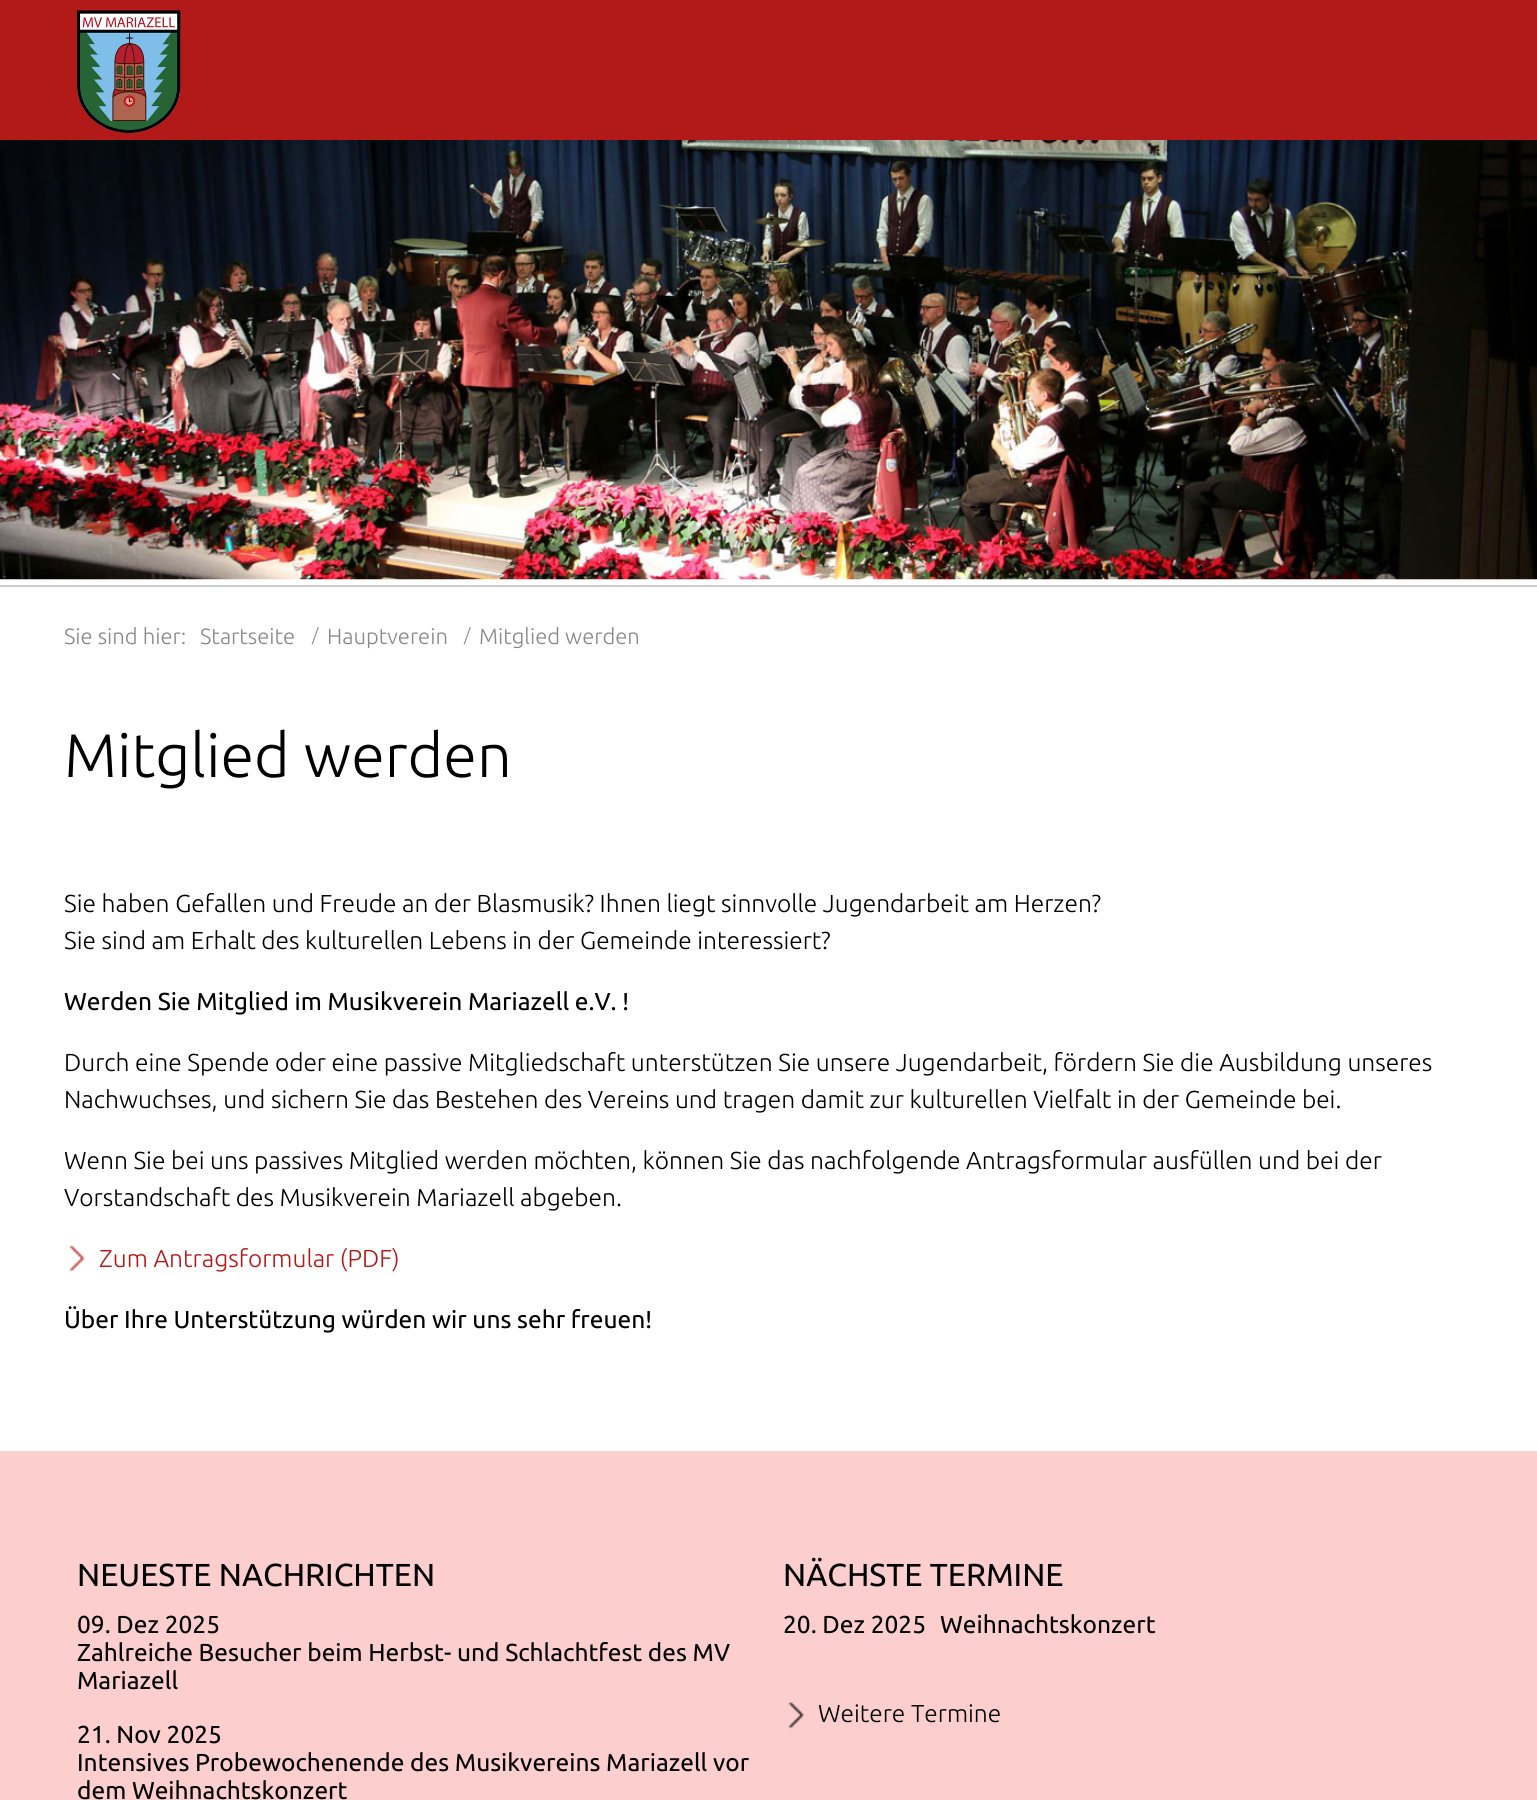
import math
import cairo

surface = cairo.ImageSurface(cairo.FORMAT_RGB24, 1537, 1800)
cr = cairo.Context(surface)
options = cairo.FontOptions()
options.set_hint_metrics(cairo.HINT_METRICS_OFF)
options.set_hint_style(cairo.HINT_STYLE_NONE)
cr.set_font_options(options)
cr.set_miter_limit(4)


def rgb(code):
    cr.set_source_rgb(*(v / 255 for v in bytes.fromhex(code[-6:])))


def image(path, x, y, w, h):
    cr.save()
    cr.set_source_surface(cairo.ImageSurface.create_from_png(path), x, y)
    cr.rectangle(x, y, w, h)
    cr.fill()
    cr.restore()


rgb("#ffffff")
cr.paint()
rgb("#b21a1a")
cr.rectangle(0, 0, 1537, 140)
cr.fill()
image("img/1.png", 77, 10, 104, 123)
rgb("#cccccc")
cr.rectangle(0, 585, 1537, 2)
cr.fill()
image("img/2.png", 0, 140, 1537, 440)
image("img/3.png", 69, 1245, 16, 27)
rgb("#fccece")
cr.rectangle(0, 1451, 1537, 349)
cr.fill()
image("img/4.png", 788, 1702, 16, 27)
cr.select_font_face("Ubuntu Light")
cr.set_font_size(22)
rgb("#888888")
cr.move_to(64, 644)
cr.show_text("Sie sind hier:")
cr.move_to(200, 644)
cr.show_text("Startseite")
cr.set_font_size(18)
cr.move_to(312, 641)
cr.show_text("/")
cr.set_font_size(22)
cr.move_to(327, 644)
cr.show_text("Hauptverein")
cr.set_font_size(18)
cr.move_to(464, 641)
cr.show_text("/")
cr.set_font_size(22)
cr.move_to(479, 644)
cr.show_text("Mitglied werden")
cr.set_font_size(61.25)
rgb("#000000")
cr.move_to(64, 777)
cr.show_text("Mitglied werden")
cr.set_font_size(24.5)
cr.move_to(64, 912)
cr.show_text("Sie haben Gefallen und Freude an der Blasmusik? Ihnen liegt sinnvolle Jugendarbeit am Herzen?")
cr.move_to(64, 949)
cr.show_text("Sie sind am Erhalt des kulturellen Lebens in der Gemeinde interessiert?")
cr.select_font_face("Ubuntu")
cr.move_to(64, 1010)
cr.show_text("Werden Sie Mitglied im Musikverein Mariazell e.V. !")
cr.select_font_face("Ubuntu Light")
for x, y, s in [
    (64, 1071, "Durch eine Spende oder eine passive Mitgliedschaft unterstützen Sie unsere Jugendarbeit, fördern Sie die Ausbildung unseres"),
    (64, 1108, "Nachwuchses, und sichern Sie das Bestehen des Vereins und tragen damit zur kulturellen Vielfalt in der Gemeinde bei."),
    (64, 1169, "Wenn Sie bei uns passives Mitglied werden möchten, können Sie das nachfolgende Antragsformular ausfüllen und bei der"),
    (64, 1206, "Vorstandschaft des Musikverein Mariazell abgeben."),
]:
    cr.move_to(x, y)
    cr.show_text(s)
rgb("#b21a1a")
cr.move_to(99, 1267)
cr.show_text("Zum Antragsformular (PDF)")
cr.select_font_face("Ubuntu")
rgb("#000000")
cr.move_to(64, 1328)
cr.show_text("Über Ihre Unterstützung würden wir uns sehr freuen!")
cr.set_font_size(31.8)
cr.move_to(77, 1586)
cr.show_text("NEUESTE NACHRICHTEN")
cr.set_font_size(24.5)
for x, y, s in [
    (77, 1633, "09. Dez 2025"),
    (77, 1661, "Zahlreiche Besucher beim Herbst- und Schlachtfest des MV"),
    (77, 1689, "Mariazell"),
    (77, 1743, "21. Nov 2025"),
    (77, 1771, "Intensives Probewochenende des Musikvereins Mariazell vor"),
    (77, 1799, "dem Weihnachtskonzert"),
]:
    cr.move_to(x, y)
    cr.show_text(s)
cr.set_font_size(31.8)
cr.move_to(783, 1586)
cr.show_text("NÄCHSTE TERMINE")
cr.set_font_size(24.5)
cr.move_to(783, 1633)
cr.show_text("20. Dez 2025")
cr.move_to(940, 1633)
cr.show_text("Weihnachtskonzert")
cr.select_font_face("Ubuntu Light")
cr.move_to(818, 1722)
cr.show_text("Weitere Termine")
surface.write_to_png("page.png")
